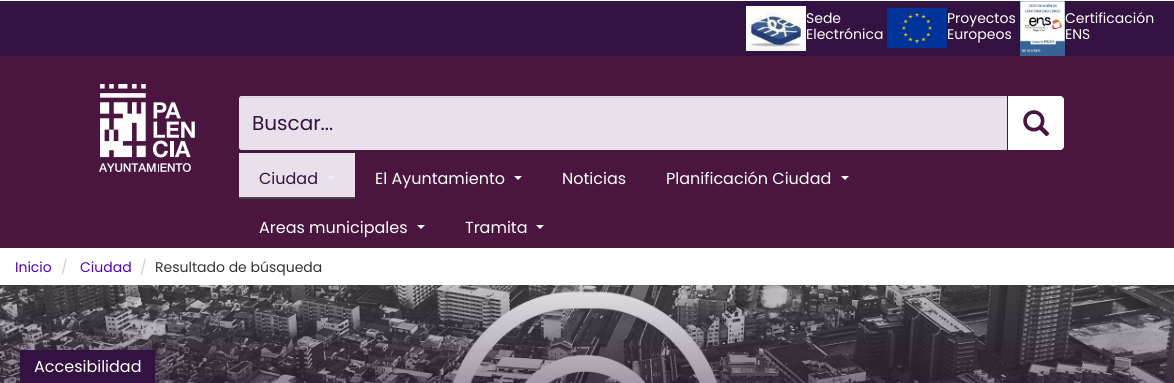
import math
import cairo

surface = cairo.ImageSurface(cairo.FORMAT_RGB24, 1174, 383)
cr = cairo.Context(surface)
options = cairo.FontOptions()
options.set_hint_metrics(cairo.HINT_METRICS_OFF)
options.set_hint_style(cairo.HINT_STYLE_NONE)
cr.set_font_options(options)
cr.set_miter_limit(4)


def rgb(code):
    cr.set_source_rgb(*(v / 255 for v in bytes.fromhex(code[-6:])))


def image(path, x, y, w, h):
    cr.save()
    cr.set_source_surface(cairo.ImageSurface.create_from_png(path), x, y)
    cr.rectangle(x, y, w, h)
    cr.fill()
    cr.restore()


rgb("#ffffff")
cr.paint()
rgb("#331140")
cr.rectangle(0, 1, 1174, 55)
cr.fill()
image("img/1.png", 746, 6, 60, 45)
image("img/2.png", 887, 8, 60, 40)
image("img/3.png", 1020, 1, 45, 55)
rgb("#4a1640")
cr.rectangle(0, 56, 1174, 192)
cr.fill()
image("img/4.png", 99, 84, 96, 88)
rgb("#e8e0ea")
cr.new_path()
cr.move_to(242, 96)
cr.line_to(1007, 96)
cr.line_to(1007, 150)
cr.line_to(242, 150)
cr.curve_to(240.5, 150, 239, 148.5, 239, 147)
cr.line_to(239, 99)
cr.curve_to(239, 97.5, 240.5, 96, 242, 96)
cr.close_path()
cr.fill()
rgb("#d7cfd8")
cr.new_path()
cr.move_to(242, 98)
cr.line_to(1006, 98)
cr.line_to(1006, 97)
cr.line_to(242, 97)
cr.curve_to(240, 97, 240, 99, 240, 100)
cr.curve_to(240, 99, 241, 98, 242, 98)
cr.close_path()
cr.fill()
cr.new_path()
cr.move_to(242, 96.5)
cr.line_to(1006.5, 96.5)
cr.line_to(1006.5, 149.5)
cr.line_to(242, 149.5)
cr.curve_to(240.5, 149.5, 239.5, 148.5, 239.5, 147)
cr.line_to(239.5, 99)
cr.curve_to(239.5, 97.5, 240.5, 96.5, 242, 96.5)
cr.close_path()
rgb("#e8e0ea")
cr.set_line_width(1)
cr.stroke()
rgb("#ffffff")
cr.new_path()
cr.move_to(1008.5, 96.5)
cr.line_to(1060, 96.5)
cr.curve_to(1062, 96.5, 1063.5, 98, 1063.5, 100)
cr.line_to(1063.5, 146)
cr.curve_to(1063.5, 148, 1062, 149.5, 1060, 149.5)
cr.line_to(1008.5, 149.5)
cr.close_path()
cr.fill_preserve()
cr.stroke()
image("img/5.png", 1023, 110, 27, 27)
rgb("#e8e0ea")
cr.rectangle(239, 153, 116, 44)
cr.fill()
rgb("#444444")
cr.rectangle(239, 197, 116, 2)
cr.fill()
rgb("#eeeeee")
cr.new_path()
cr.move_to(327, 176)
cr.line_to(335, 176)
cr.line_to(331, 180)
cr.close_path()
cr.fill()
rgb("#ffffff")
cr.new_path()
cr.move_to(514, 176)
cr.line_to(522, 176)
cr.line_to(518, 180)
cr.close_path()
cr.fill()
cr.new_path()
cr.move_to(841, 176)
cr.line_to(849, 176)
cr.line_to(845, 180)
cr.close_path()
cr.fill()
cr.new_path()
cr.move_to(417, 225)
cr.line_to(425, 225)
cr.line_to(421, 229)
cr.close_path()
cr.fill()
cr.new_path()
cr.move_to(536, 225)
cr.line_to(544, 225)
cr.line_to(540, 229)
cr.close_path()
cr.fill()
image("img/6.png", 0, 285, 1174, 98)
rgb("#331140")
cr.rectangle(20, 350, 135, 33)
cr.fill()
cr.select_font_face("Poppins")
cr.set_font_size(14)
rgb("#ffffff")
for x, y, s in [
    (806, 23, "Sede"),
    (806, 39, "Electrónica"),
    (947, 23, "Proyectos"),
    (947, 39, "Europeos"),
    (1065, 23, "Certificación"),
    (1065, 39, "ENS"),
]:
    cr.move_to(x, y)
    cr.show_text(s)
cr.set_font_size(20)
rgb("#331140")
cr.move_to(252, 130)
cr.show_text("Buscar...")
cr.set_font_size(16)
cr.move_to(259, 184)
cr.show_text("Ciudad")
rgb("#ffffff")
for x, y, s in [
    (375, 184, "El Ayuntamiento"),
    (562, 184, "Noticias"),
    (666, 184, "Planificación Ciudad"),
    (259, 233, "Areas municipales"),
    (465, 233, "Tramita"),
]:
    cr.move_to(x, y)
    cr.show_text(s)
cr.set_font_size(14)
rgb("#5100c3")
cr.move_to(15, 272)
cr.show_text("Inicio")
rgb("#cccccc")
cr.move_to(61, 272)
cr.show_text("/")
rgb("#5100c3")
cr.move_to(80, 272)
cr.show_text("Ciudad")
rgb("#cccccc")
cr.move_to(140, 272)
cr.show_text("/")
rgb("#333333")
cr.move_to(155, 272)
cr.show_text("Resultado de búsqueda")
cr.set_font_size(16)
rgb("#ffffff")
cr.move_to(34, 372)
cr.show_text("Accesibilidad")
surface.write_to_png("page.png")
